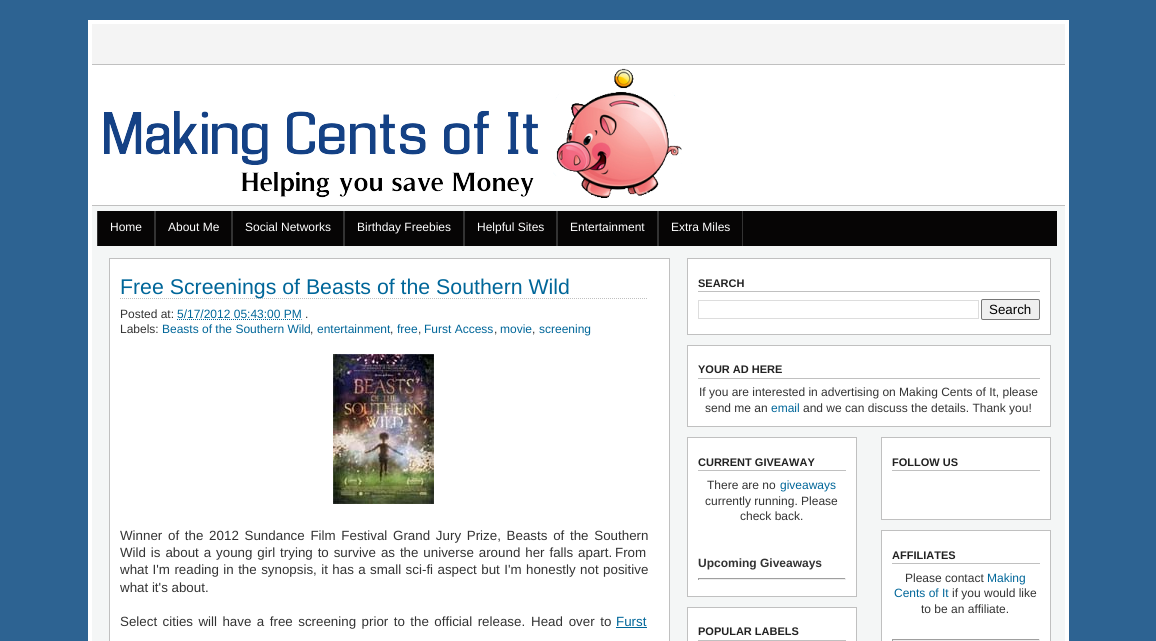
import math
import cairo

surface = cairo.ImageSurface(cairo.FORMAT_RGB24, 1156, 641)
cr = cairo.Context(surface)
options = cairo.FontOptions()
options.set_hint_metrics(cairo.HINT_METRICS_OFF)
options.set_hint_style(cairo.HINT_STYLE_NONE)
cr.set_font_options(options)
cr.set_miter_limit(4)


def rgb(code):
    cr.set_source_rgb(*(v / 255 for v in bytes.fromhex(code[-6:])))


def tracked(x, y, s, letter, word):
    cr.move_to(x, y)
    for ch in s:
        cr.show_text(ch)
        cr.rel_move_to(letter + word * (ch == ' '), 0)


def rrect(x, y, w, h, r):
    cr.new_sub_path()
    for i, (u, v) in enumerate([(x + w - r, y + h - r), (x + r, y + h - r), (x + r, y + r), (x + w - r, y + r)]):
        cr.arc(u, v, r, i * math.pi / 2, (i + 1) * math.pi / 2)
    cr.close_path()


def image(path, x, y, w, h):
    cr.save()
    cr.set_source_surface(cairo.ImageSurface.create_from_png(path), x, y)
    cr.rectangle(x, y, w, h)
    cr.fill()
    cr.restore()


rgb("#2d6392")
cr.paint()
rgb("#f4f6f6")
cr.rectangle(92, 206, 973, 435)
cr.fill()
cr.rectangle(90, 22, 977, 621)
rgb("#ffffff")
cr.set_line_width(4)
cr.stroke()
for x, y, w, h, color in [
    (92, 24, 973, 40, "#f4f4f4"),
    (92, 65, 973, 140, "#ffffff"),
    (92, 64, 973, 1, "#c0c0c0"),
    (92, 205, 973, 1, "#c0c0c0"),
]:
    rgb(color)
    cr.rectangle(x, y, w, h)
    cr.fill()
image("img/1.png", 104, 68, 578, 130)
for x, y, w, h, color in [
    (98, 211, 959, 35, "#060505"),
    (154, 211, 2, 35, "#333333"),
    (97, 211, 1, 35, "#333333"),
    (231, 211, 2, 35, "#333333"),
    (343, 211, 2, 35, "#333333"),
    (463, 211, 2, 35, "#333333"),
    (556, 211, 2, 35, "#333333"),
    (657, 211, 2, 35, "#333333"),
    (742, 211, 1, 35, "#333333"),
]:
    rgb(color)
    cr.rectangle(x, y, w, h)
    cr.fill()
rgb("#ffffff")
cr.rectangle(109.5, 258.5, 560, 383)
cr.fill_preserve()
rgb("#c0c0c0")
cr.set_line_width(1)
cr.stroke()
cr.new_path()
cr.move_to(120, 298.5)
cr.line_to(647, 298.5)
cr.set_dash([1, 1])
cr.stroke()
cr.new_path()
cr.move_to(177, 319.5)
cr.line_to(301.5, 319.5)
rgb("#006699")
cr.stroke()
image("img/2.png", 333, 354, 101, 150)
cr.rectangle(616, 627, 31, 1)
cr.fill()
rgb("#ffffff")
cr.rectangle(687.5, 258.5, 363, 76)
cr.fill_preserve()
rgb("#c0c0c0")
cr.set_dash([])
cr.stroke()
cr.rectangle(698, 291, 342, 1)
cr.fill()
cr.rectangle(698.5, 300.5, 280, 18)
rgb("#dddddd")
cr.stroke()
rgb("#efefef")
rrect(981.5, 299.5, 58, 20, 1.5)
cr.fill_preserve()
rgb("#767676")
cr.stroke()
rgb("#ffffff")
cr.rectangle(687.5, 345.5, 363, 81)
cr.fill_preserve()
rgb("#c0c0c0")
cr.stroke()
cr.rectangle(698, 378, 342, 1)
cr.fill()
rgb("#ffffff")
cr.rectangle(687.5, 437.5, 169, 159)
cr.fill_preserve()
rgb("#c0c0c0")
cr.stroke()
for x, y, w, h, color in [
    (698, 470, 148, 1, "#c0c0c0"),
    (698, 578, 148, 1, "#9f9f9f"),
    (845, 578, 1, 2, "#eeeeee"),
    (698, 579, 148, 1, "#eeeeee"),
    (698, 578, 1, 2, "#9f9f9f"),
]:
    rgb(color)
    cr.rectangle(x, y, w, h)
    cr.fill()
rgb("#ffffff")
cr.rectangle(687.5, 607.5, 169, 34)
cr.fill_preserve()
rgb("#c0c0c0")
cr.stroke()
cr.rectangle(698, 640, 148, 1)
cr.fill()
rgb("#ffffff")
cr.rectangle(881.5, 437.5, 169, 82)
cr.fill_preserve()
rgb("#c0c0c0")
cr.stroke()
cr.rectangle(892, 470, 148, 1)
cr.fill()
rgb("#ffffff")
cr.rectangle(881.5, 530.5, 169, 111)
cr.fill_preserve()
rgb("#c0c0c0")
cr.stroke()
for x, y, w, h, color in [
    (892, 563, 148, 1, "#c0c0c0"),
    (892, 639, 148, 1, "#9f9f9f"),
    (1039, 639, 1, 2, "#eeeeee"),
    (892, 640, 148, 1, "#eeeeee"),
    (892, 639, 1, 2, "#9f9f9f"),
]:
    rgb(color)
    cr.rectangle(x, y, w, h)
    cr.fill()
cr.select_font_face("Liberation Sans")
cr.set_font_size(12)
rgb("#ffffff")
for x, y, s in [
    (110, 231, "Home"),
    (168, 231, "About Me"),
    (245, 231, "Social Networks"),
    (357, 231, "Birthday Freebies"),
    (477, 231, "Helpful Sites"),
    (570, 231, "Entertainment"),
    (671, 231, "Extra Miles"),
]:
    cr.move_to(x, y)
    cr.show_text(s)
cr.set_font_size(21.3)
rgb("#006699")
cr.move_to(120, 294)
cr.show_text("Free Screenings of Beasts of the Southern Wild")
cr.set_font_size(12)
rgb("#333333")
cr.move_to(120, 318)
cr.show_text("Posted at:")
rgb("#006699")
cr.move_to(177, 318)
cr.show_text("5/17/2012 05:43:00 PM")
rgb("#333333")
cr.move_to(305, 318)
cr.show_text(".")
cr.move_to(120, 333)
cr.show_text("Labels:")
rgb("#006699")
cr.move_to(162, 333)
cr.show_text("Beasts of the Southern Wild")
rgb("#333333")
cr.move_to(310, 333)
cr.show_text(",")
rgb("#006699")
cr.move_to(317, 333)
cr.show_text("entertainment")
rgb("#333333")
cr.move_to(390, 333)
cr.show_text(",")
rgb("#006699")
cr.move_to(397, 333)
cr.show_text("free")
rgb("#333333")
cr.move_to(418, 333)
cr.show_text(",")
rgb("#006699")
cr.move_to(424, 333)
cr.show_text("Furst Access")
rgb("#333333")
cr.move_to(494, 333)
cr.show_text(",")
rgb("#006699")
cr.move_to(500, 333)
cr.show_text("movie")
rgb("#333333")
cr.move_to(532, 333)
cr.show_text(",")
rgb("#006699")
cr.move_to(539, 333)
cr.show_text("screening")
cr.set_font_size(13.35)
rgb("#333333")
tracked(120, 540, "Winner of the 2012 Sundance Film Festival Grand Jury Prize, Beasts of the Southern", 0, 2)
tracked(120, 557, "Wild is about a young girl trying to survive as the universe around her falls apart.", 0, 1.2)
cr.move_to(615, 557)
cr.show_text("From")
tracked(120, 574, "what I'm reading in the synopsis, it has a small sci-fi aspect but I'm honestly not positive", 0, 0.7)
cr.move_to(120, 592)
cr.show_text("what it's about.")
tracked(120, 626, "Select cities will have a free screening prior to the official release.", 0, 1.75)
tracked(531, 626, "Head over to", 0, 2)
rgb("#006699")
cr.move_to(616, 626)
cr.show_text("Furst")
cr.select_font_face("Liberation Sans", cairo.FONT_SLANT_NORMAL, cairo.FONT_WEIGHT_BOLD)
cr.set_font_size(11)
rgb("#222222")
cr.move_to(698, 287)
cr.show_text("SEARCH")
cr.select_font_face("Liberation Sans")
cr.set_font_size(13.35)
rgb("#000000")
cr.move_to(989, 314)
cr.show_text("Search")
cr.select_font_face("Liberation Sans", cairo.FONT_SLANT_NORMAL, cairo.FONT_WEIGHT_BOLD)
cr.set_font_size(11)
rgb("#222222")
cr.move_to(698, 373)
cr.show_text("YOUR AD HERE")
cr.select_font_face("Liberation Sans")
cr.set_font_size(12)
rgb("#333333")
cr.move_to(699, 396)
cr.show_text("If you are interested in advertising on Making Cents of It, please")
cr.move_to(705, 412)
cr.show_text("send me an")
rgb("#006699")
cr.move_to(771, 412)
cr.show_text("email")
rgb("#333333")
cr.move_to(803, 412)
cr.show_text("and we can discuss the details. Thank you!")
cr.select_font_face("Liberation Sans", cairo.FONT_SLANT_NORMAL, cairo.FONT_WEIGHT_BOLD)
cr.set_font_size(11)
rgb("#222222")
cr.move_to(698, 466)
cr.show_text("CURRENT GIVEAWAY")
cr.select_font_face("Liberation Sans")
cr.set_font_size(12)
rgb("#333333")
cr.move_to(707, 489)
cr.show_text("There are no")
rgb("#006699")
cr.move_to(780, 489)
cr.show_text("giveaways")
rgb("#333333")
cr.move_to(705, 505)
cr.show_text("currently running. Please")
cr.move_to(740, 520)
cr.show_text("check back.")
cr.select_font_face("Liberation Sans", cairo.FONT_SLANT_NORMAL, cairo.FONT_WEIGHT_BOLD)
cr.move_to(698, 567)
cr.show_text("Upcoming Giveaways")
cr.set_font_size(11)
rgb("#222222")
for x, y, s in [
    (698, 635, "POPULAR LABELS"),
    (892, 466, "FOLLOW US"),
    (892, 559, "AFFILIATES"),
]:
    cr.move_to(x, y)
    cr.show_text(s)
cr.select_font_face("Liberation Sans")
cr.set_font_size(12)
rgb("#333333")
cr.move_to(905, 582)
cr.show_text("Please contact")
rgb("#006699")
cr.move_to(987, 582)
cr.show_text("Making")
cr.move_to(894, 597)
cr.show_text("Cents of It")
rgb("#333333")
cr.move_to(952, 597)
cr.show_text("if you would like")
cr.move_to(921, 613)
cr.show_text("to be an affiliate.")
surface.write_to_png("page.png")
